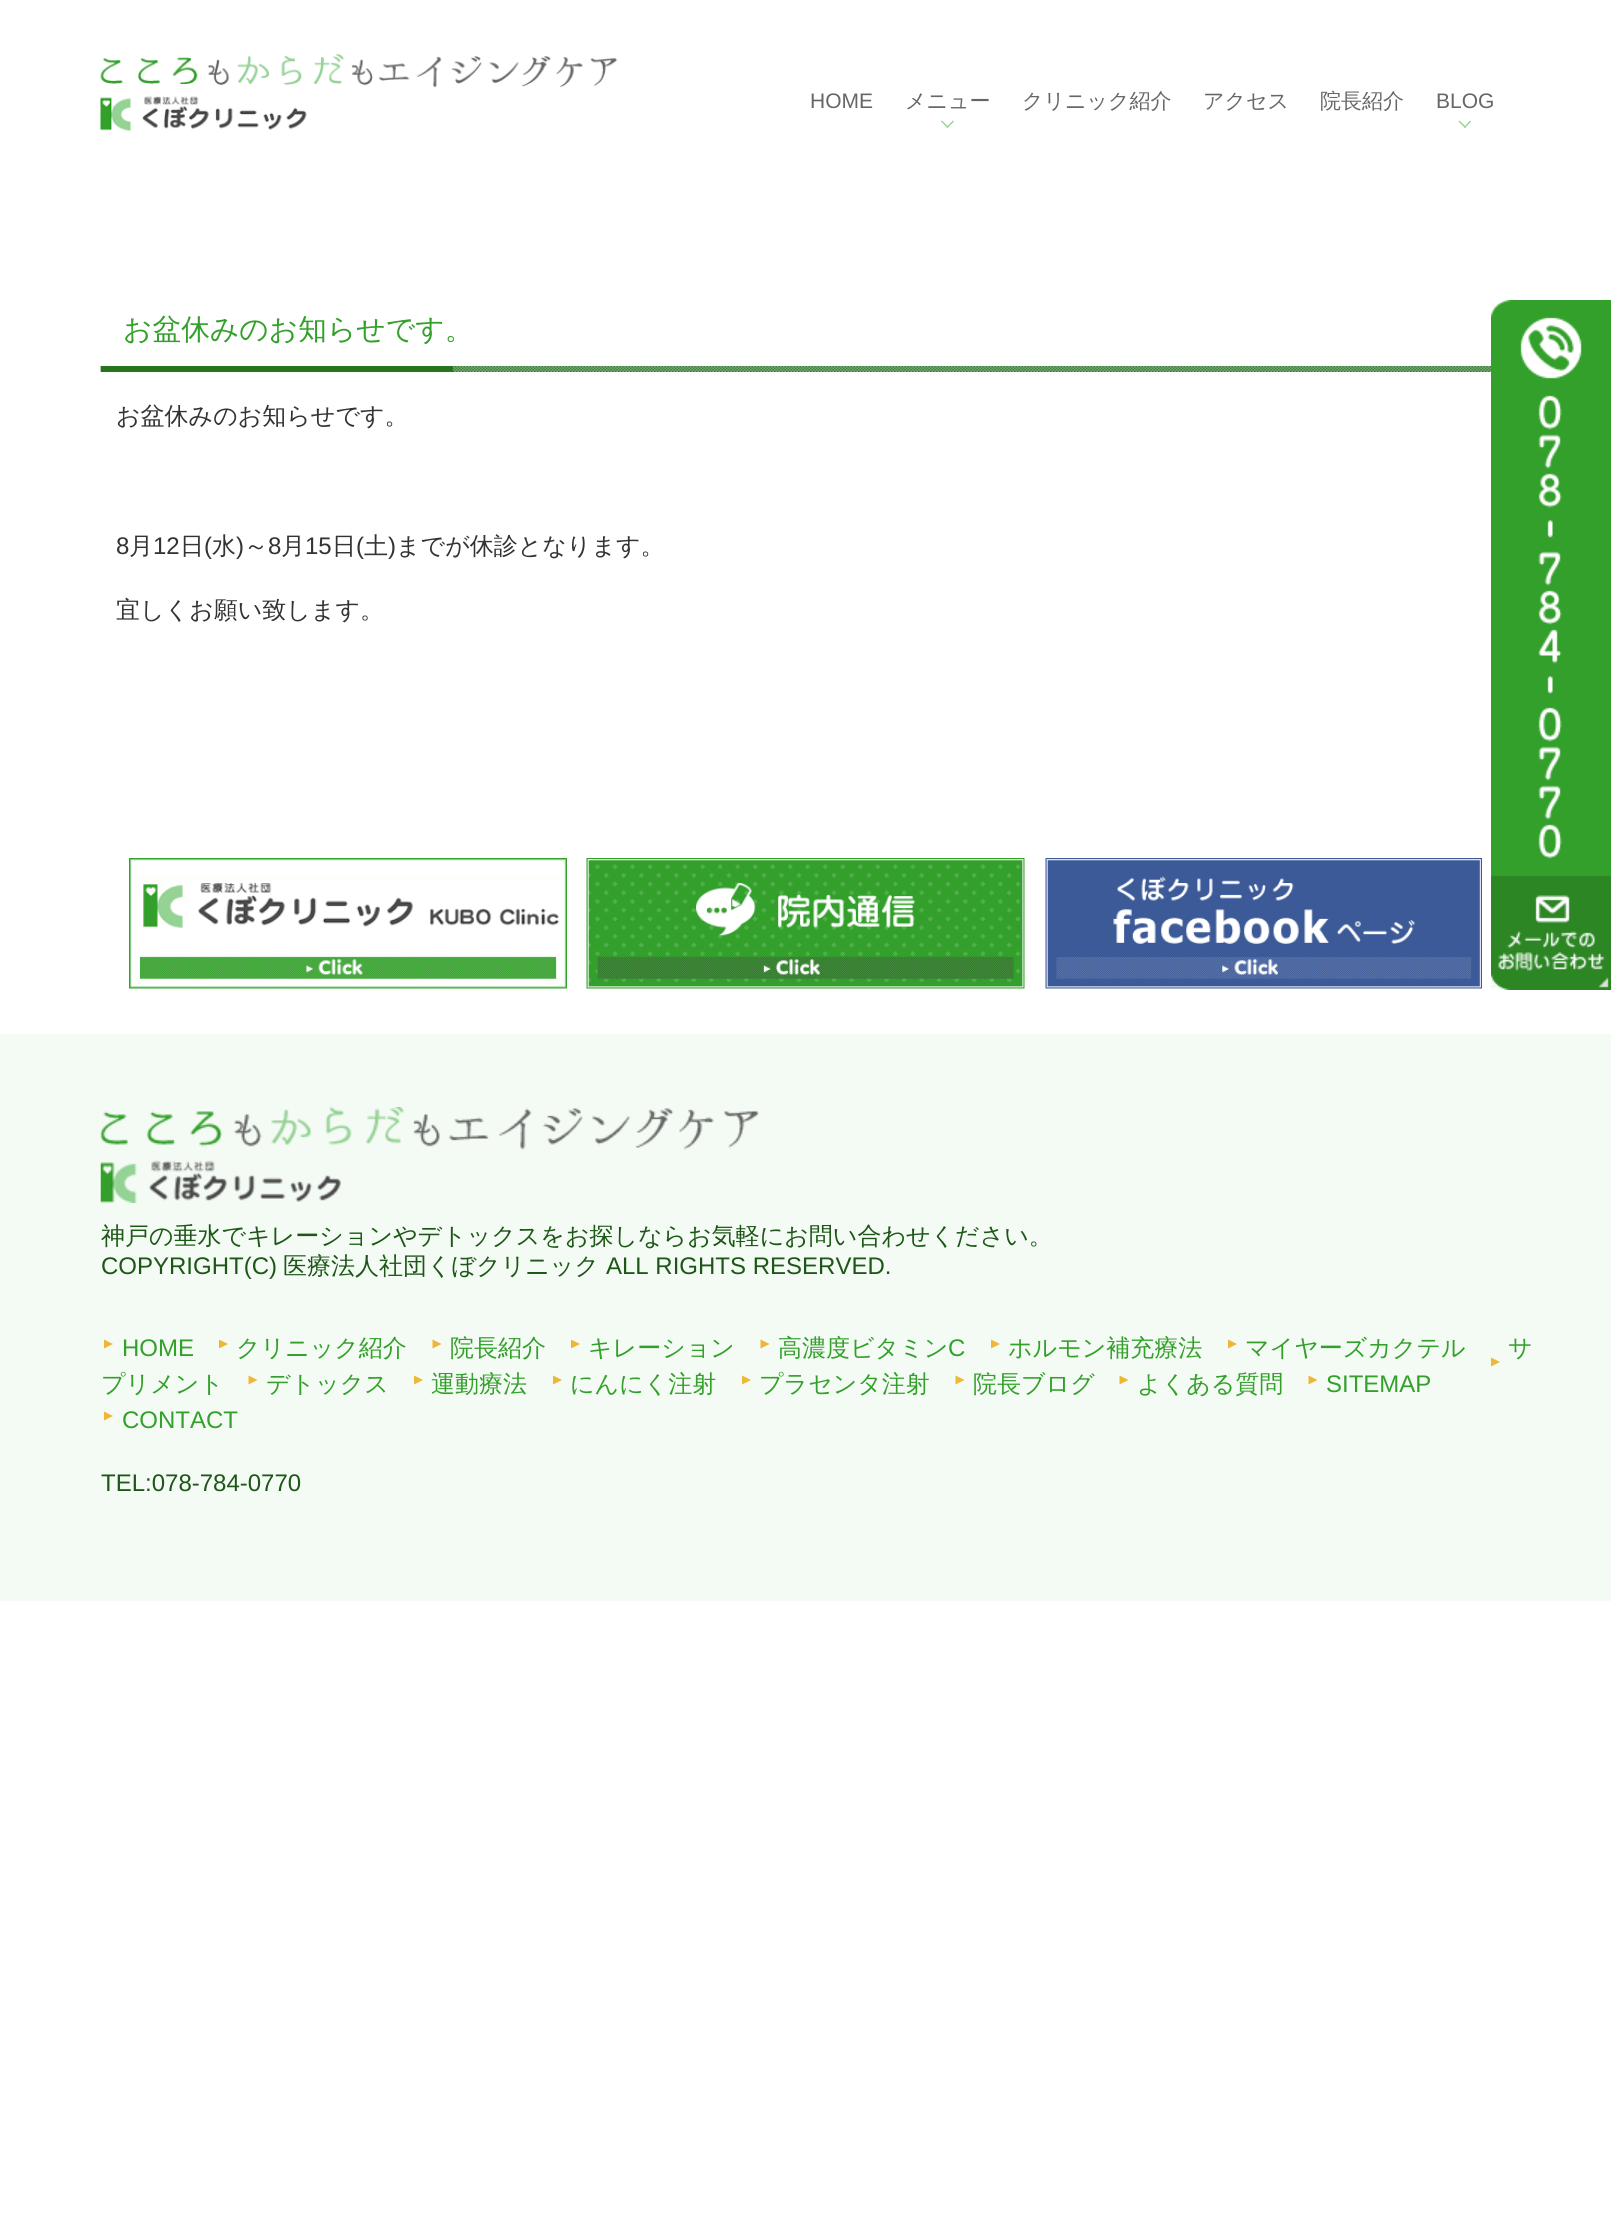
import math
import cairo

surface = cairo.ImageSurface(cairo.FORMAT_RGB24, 1611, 2214)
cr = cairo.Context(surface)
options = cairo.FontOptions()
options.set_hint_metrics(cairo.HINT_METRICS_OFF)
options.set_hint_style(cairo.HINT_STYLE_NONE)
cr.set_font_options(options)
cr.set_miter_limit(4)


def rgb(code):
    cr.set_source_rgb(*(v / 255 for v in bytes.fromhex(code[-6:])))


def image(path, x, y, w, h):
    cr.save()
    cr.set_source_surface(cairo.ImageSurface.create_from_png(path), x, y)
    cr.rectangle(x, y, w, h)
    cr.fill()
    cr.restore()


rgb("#ffffff")
cr.paint()
image("img/1.png", 100, 54, 518, 77)
rgb("#95d394")
cr.new_path()
cr.move_to(953, 120.5)
cr.line_to(954, 121.5)
cr.line_to(947.5, 128)
cr.line_to(946.5, 127)
cr.close_path()
cr.fill()
cr.new_path()
cr.move_to(942, 120.5)
cr.line_to(948.5, 127)
cr.line_to(947.5, 128)
cr.line_to(941, 121.5)
cr.close_path()
cr.fill()
cr.new_path()
cr.move_to(1470, 120.5)
cr.line_to(1471, 121.5)
cr.line_to(1465, 128)
cr.line_to(1464, 127)
cr.close_path()
cr.fill()
cr.new_path()
cr.move_to(1459.5, 120.5)
cr.line_to(1466, 127)
cr.line_to(1465, 128)
cr.line_to(1458.5, 121.5)
cr.close_path()
cr.fill()
image("img/2.png", 100, 366, 1391, 6)
rgb("#27741f")
cr.rectangle(101, 366, 352, 6)
cr.fill()
image("img/3.png", 1491, 300, 120, 690)
image("img/4.png", 129, 858, 438, 131)
image("img/5.png", 586, 858, 439, 131)
image("img/6.png", 1045, 858, 437, 131)
rgb("#f4fbf4")
cr.rectangle(0, 1034, 1611, 567)
cr.fill()
image("img/7.png", 100, 1107, 660, 96)
rgb("#eeb737")
cr.new_path()
cr.move_to(219, 1348.5)
cr.line_to(219, 1339.5)
cr.line_to(228, 1344)
cr.close_path()
cr.fill()
cr.new_path()
cr.move_to(432.5, 1348.5)
cr.line_to(432.5, 1339.5)
cr.line_to(441.5, 1344)
cr.close_path()
cr.fill()
cr.new_path()
cr.move_to(760.5, 1348.5)
cr.line_to(760.5, 1339.5)
cr.line_to(769.5, 1344)
cr.close_path()
cr.fill()
cr.new_path()
cr.move_to(991, 1348.5)
cr.line_to(991, 1339.5)
cr.line_to(1000, 1344)
cr.close_path()
cr.fill()
cr.new_path()
cr.move_to(1228, 1348.5)
cr.line_to(1228, 1339.5)
cr.line_to(1237, 1344)
cr.close_path()
cr.fill()
cr.new_path()
cr.move_to(1491, 1366.5)
cr.line_to(1491, 1357.5)
cr.line_to(1500, 1362)
cr.close_path()
cr.fill()
cr.new_path()
cr.move_to(104, 1348.5)
cr.line_to(104, 1339.5)
cr.line_to(113, 1344)
cr.close_path()
cr.fill()
cr.new_path()
cr.move_to(571, 1348.5)
cr.line_to(571, 1339.5)
cr.line_to(580, 1344)
cr.close_path()
cr.fill()
cr.new_path()
cr.move_to(248.5, 1384.5)
cr.line_to(248.5, 1375.5)
cr.line_to(257.5, 1380)
cr.close_path()
cr.fill()
cr.new_path()
cr.move_to(414, 1384.5)
cr.line_to(414, 1375.5)
cr.line_to(423, 1380)
cr.close_path()
cr.fill()
cr.new_path()
cr.move_to(553, 1384.5)
cr.line_to(553, 1375.5)
cr.line_to(562, 1380)
cr.close_path()
cr.fill()
cr.new_path()
cr.move_to(742, 1384.5)
cr.line_to(742, 1375.5)
cr.line_to(751, 1380)
cr.close_path()
cr.fill()
cr.new_path()
cr.move_to(955.5, 1384.5)
cr.line_to(955.5, 1375.5)
cr.line_to(964.5, 1380)
cr.close_path()
cr.fill()
cr.new_path()
cr.move_to(1119.5, 1384.5)
cr.line_to(1119.5, 1375.5)
cr.line_to(1128.5, 1380)
cr.close_path()
cr.fill()
cr.new_path()
cr.move_to(1308.5, 1384.5)
cr.line_to(1308.5, 1375.5)
cr.line_to(1317.5, 1380)
cr.close_path()
cr.fill()
cr.new_path()
cr.move_to(104, 1420.5)
cr.line_to(104, 1411.5)
cr.line_to(113, 1416)
cr.close_path()
cr.fill()
cr.select_font_face("Liberation Sans")
cr.set_font_size(21)
rgb("#666666")
cr.move_to(810, 108)
cr.show_text("HOME")
cr.select_font_face("WenQuanYi Zen Hei Medium")
for x, y, s in [
    (905, 108, "メニュー"),
    (1022, 108, "クリニック紹介"),
    (1203, 108, "アクセス"),
    (1320, 108, "院長紹介"),
]:
    cr.move_to(x, y)
    cr.show_text(s)
cr.select_font_face("Liberation Sans")
cr.move_to(1436, 108)
cr.show_text("BLOG")
cr.select_font_face("WenQuanYi Zen Hei Medium")
cr.set_font_size(28.75)
rgb("#33a02b")
cr.move_to(123, 339)
cr.show_text("お盆休みのお知らせです。")
cr.set_font_size(24)
rgb("#333333")
cr.move_to(116, 424)
cr.show_text("お盆休みのお知らせです。")
cr.select_font_face("Liberation Sans")
cr.move_to(116, 554)
cr.show_text("8")
cr.select_font_face("WenQuanYi Zen Hei Medium")
cr.move_to(129, 554)
cr.show_text("月")
cr.select_font_face("Liberation Sans")
cr.move_to(153, 554)
cr.show_text("12")
cr.select_font_face("WenQuanYi Zen Hei Medium")
cr.move_to(180, 554)
cr.show_text("日")
cr.select_font_face("Liberation Sans")
cr.move_to(204, 554)
cr.show_text("(")
cr.select_font_face("WenQuanYi Zen Hei Medium")
cr.move_to(212, 554)
cr.show_text("水")
cr.select_font_face("Liberation Sans")
cr.move_to(236, 554)
cr.show_text(")")
cr.select_font_face("WenQuanYi Zen Hei Medium")
cr.move_to(244, 554)
cr.show_text("～")
cr.select_font_face("Liberation Sans")
cr.move_to(268, 554)
cr.show_text("8")
cr.select_font_face("WenQuanYi Zen Hei Medium")
cr.move_to(281, 554)
cr.show_text("月")
cr.select_font_face("Liberation Sans")
cr.move_to(305, 554)
cr.show_text("15")
cr.select_font_face("WenQuanYi Zen Hei Medium")
cr.move_to(332, 554)
cr.show_text("日")
cr.select_font_face("Liberation Sans")
cr.move_to(356, 554)
cr.show_text("(")
cr.select_font_face("WenQuanYi Zen Hei Medium")
cr.move_to(364, 554)
cr.show_text("土")
cr.select_font_face("Liberation Sans")
cr.move_to(388, 554)
cr.show_text(")")
cr.select_font_face("WenQuanYi Zen Hei Medium")
cr.move_to(396, 554)
cr.show_text("までが休診となります。")
cr.move_to(116, 618)
cr.show_text("宜しくお願い致します。")
rgb("#1d5717")
cr.move_to(101, 1244)
cr.show_text("神戸の垂水でキレーションやデトックスをお探しならお気軽にお問い合わせください。")
cr.select_font_face("Liberation Sans")
cr.move_to(101, 1274)
cr.show_text("COPYRIGHT(C)")
cr.select_font_face("WenQuanYi Zen Hei Medium")
cr.move_to(283, 1274)
cr.show_text("医療法人社団くぼクリニック")
cr.select_font_face("Liberation Sans")
cr.move_to(606, 1274)
cr.show_text("ALL RIGHTS RESERVED.")
cr.select_font_face("WenQuanYi Zen Hei Medium")
rgb("#33a02b")
for x, y, s in [
    (236, 1356, "クリニック紹介"),
    (450, 1356, "院長紹介"),
    (778, 1356, "高濃度ビタミン"),
]:
    cr.move_to(x, y)
    cr.show_text(s)
cr.select_font_face("Liberation Sans")
cr.move_to(948, 1356)
cr.show_text("C")
cr.select_font_face("WenQuanYi Zen Hei Medium")
for x, y, s in [
    (1008, 1356, "ホルモン補充療法"),
    (1245, 1356, "マイヤーズカクテル"),
    (1508, 1356, "サ"),
    (101, 1392, "プリメント"),
]:
    cr.move_to(x, y)
    cr.show_text(s)
cr.select_font_face("Liberation Sans")
cr.move_to(122, 1356)
cr.show_text("HOME")
cr.select_font_face("WenQuanYi Zen Hei Medium")
for x, y, s in [
    (588, 1356, "キレーション"),
    (266, 1392, "デトックス"),
    (431, 1392, "運動療法"),
    (570, 1392, "にんにく注射"),
    (759, 1392, "プラセンタ注射"),
    (973, 1392, "院長ブログ"),
    (1137, 1392, "よくある質問"),
]:
    cr.move_to(x, y)
    cr.show_text(s)
cr.select_font_face("Liberation Sans")
cr.move_to(1326, 1392)
cr.show_text("SITEMAP")
cr.move_to(122, 1428)
cr.show_text("CONTACT")
rgb("#1d5717")
cr.move_to(101, 1491)
cr.show_text("TEL:078-784-0770")
surface.write_to_png("page.png")
